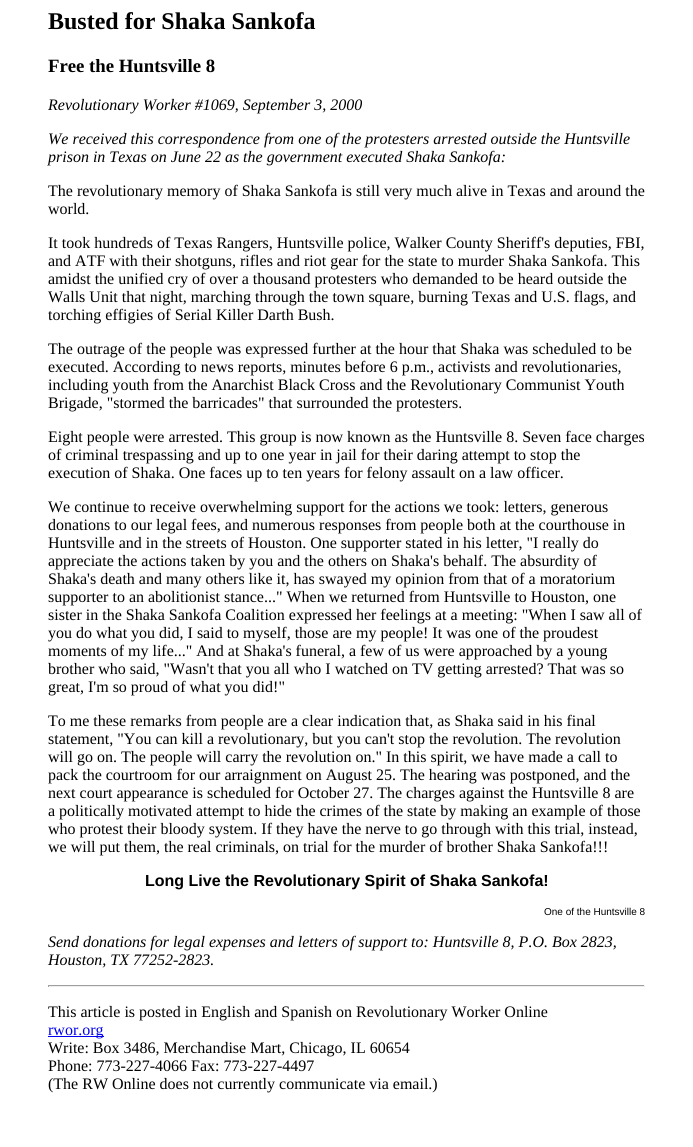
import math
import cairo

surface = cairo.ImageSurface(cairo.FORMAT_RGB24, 693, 1147)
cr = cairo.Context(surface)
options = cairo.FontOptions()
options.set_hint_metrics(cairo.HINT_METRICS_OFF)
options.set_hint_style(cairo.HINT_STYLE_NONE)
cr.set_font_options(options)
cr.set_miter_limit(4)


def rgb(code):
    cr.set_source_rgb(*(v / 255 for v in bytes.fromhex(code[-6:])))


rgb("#ffffff")
cr.paint()
for x, y, w, h, color in [
    (48, 985, 597, 1, "#9f9f9f"),
    (644, 985, 1, 2, "#eeeeee"),
    (48, 986, 597, 1, "#eeeeee"),
    (48, 985, 1, 2, "#9f9f9f"),
    (48, 1036, 56, 1, "#0000ee"),
]:
    rgb(color)
    cr.rectangle(x, y, w, h)
    cr.fill()
cr.select_font_face("Liberation Serif", cairo.FONT_SLANT_NORMAL, cairo.FONT_WEIGHT_BOLD)
cr.set_font_size(24)
rgb("#000000")
cr.move_to(48, 29)
cr.show_text("Busted for Shaka Sankofa")
cr.set_font_size(18.75)
cr.move_to(48, 72)
cr.show_text("Free the Huntsville 8")
cr.select_font_face("Liberation Serif", cairo.FONT_SLANT_ITALIC)
cr.set_font_size(16)
for x, y, s in [
    (48, 110, "Revolutionary Worker #1069, September 3, 2000"),
    (48, 144, "We received this correspondence from one of the protesters arrested outside the Huntsville"),
    (48, 162, "prison in Texas on June 22 as the government executed Shaka Sankofa:"),
]:
    cr.move_to(x, y)
    cr.show_text(s)
cr.select_font_face("Liberation Serif")
for x, y, s in [
    (48, 196, "The revolutionary memory of Shaka Sankofa is still very much alive in Texas and around the"),
    (48, 214, "world."),
    (48, 248, "It took hundreds of Texas Rangers, Huntsville police, Walker County Sheriff's deputies, FBI,"),
    (48, 266, "and ATF with their shotguns, rifles and riot gear for the state to murder Shaka Sankofa. This"),
    (48, 284, "amidst the unified cry of over a thousand protesters who demanded to be heard outside the"),
    (48, 302, "Walls Unit that night, marching through the town square, burning Texas and U.S. flags, and"),
    (48, 320, "torching effigies of Serial Killer Darth Bush."),
    (48, 354, "The outrage of the people was expressed further at the hour that Shaka was scheduled to be"),
    (48, 372, "executed. According to news reports, minutes before 6 p.m., activists and revolutionaries,"),
    (48, 390, "including youth from the Anarchist Black Cross and the Revolutionary Communist Youth"),
    (48, 408, "Brigade, \"stormed the barricades\" that surrounded the protesters."),
    (48, 442, "Eight people were arrested. This group is now known as the Huntsville 8. Seven face charges"),
    (48, 460, "of criminal trespassing and up to one year in jail for their daring attempt to stop the"),
    (48, 478, "execution of Shaka. One faces up to ten years for felony assault on a law officer."),
    (48, 512, "We continue to receive overwhelming support for the actions we took: letters, generous"),
    (48, 530, "donations to our legal fees, and numerous responses from people both at the courthouse in"),
    (48, 548, "Huntsville and in the streets of Houston. One supporter stated in his letter, \"I really do"),
    (48, 566, "appreciate the actions taken by you and the others on Shaka's behalf. The absurdity of"),
    (48, 584, "Shaka's death and many others like it, has swayed my opinion from that of a moratorium"),
    (48, 602, "supporter to an abolitionist stance...\" When we returned from Huntsville to Houston, one"),
    (48, 620, "sister in the Shaka Sankofa Coalition expressed her feelings at a meeting: \"When I saw all of"),
    (48, 638, "you do what you did, I said to myself, those are my people! It was one of the proudest"),
    (48, 656, "moments of my life...\" And at Shaka's funeral, a few of us were approached by a young"),
    (48, 674, "brother who said, \"Wasn't that you all who I watched on TV getting arrested? That was so"),
    (48, 692, "great, I'm so proud of what you did!\""),
    (48, 726, "To me these remarks from people are a clear indication that, as Shaka said in his final"),
    (48, 744, "statement, \"You can kill a revolutionary, but you can't stop the revolution. The revolution"),
    (48, 762, "will go on. The people will carry the revolution on.\" In this spirit, we have made a call to"),
    (48, 780, "pack the courtroom for our arraignment on August 25. The hearing was postponed, and the"),
    (48, 798, "next court appearance is scheduled for October 27. The charges against the Huntsville 8 are"),
    (48, 816, "a politically motivated attempt to hide the crimes of the state by making an example of those"),
    (48, 834, "who protest their bloody system. If they have the nerve to go through with this trial, instead,"),
    (48, 852, "we will put them, the real criminals, on trial for the murder of brother Shaka Sankofa!!!"),
]:
    cr.move_to(x, y)
    cr.show_text(s)
cr.select_font_face("Liberation Sans", cairo.FONT_SLANT_NORMAL, cairo.FONT_WEIGHT_BOLD)
cr.move_to(145, 886)
cr.show_text("Long Live the Revolutionary Spirit of Shaka Sankofa!")
cr.select_font_face("Liberation Sans")
cr.set_font_size(10)
cr.move_to(544, 915)
cr.show_text("One of the Huntsville 8")
cr.select_font_face("Liberation Serif", cairo.FONT_SLANT_ITALIC)
cr.set_font_size(16)
cr.move_to(48, 947)
cr.show_text("Send donations for legal expenses and letters of support to: Huntsville 8, P.O. Box 2823,")
cr.move_to(48, 965)
cr.show_text("Houston, TX 77252-2823.")
cr.select_font_face("Liberation Serif")
cr.move_to(48, 1017)
cr.show_text("This article is posted in English and Spanish on Revolutionary Worker Online")
rgb("#0000ee")
cr.move_to(48, 1035)
cr.show_text("rwor.org")
rgb("#000000")
for x, y, s in [
    (48, 1053, "Write: Box 3486, Merchandise Mart, Chicago, IL 60654"),
    (48, 1071, "Phone: 773-227-4066 Fax: 773-227-4497"),
    (48, 1089, "(The RW Online does not currently communicate via email.)"),
]:
    cr.move_to(x, y)
    cr.show_text(s)
surface.write_to_png("page.png")
